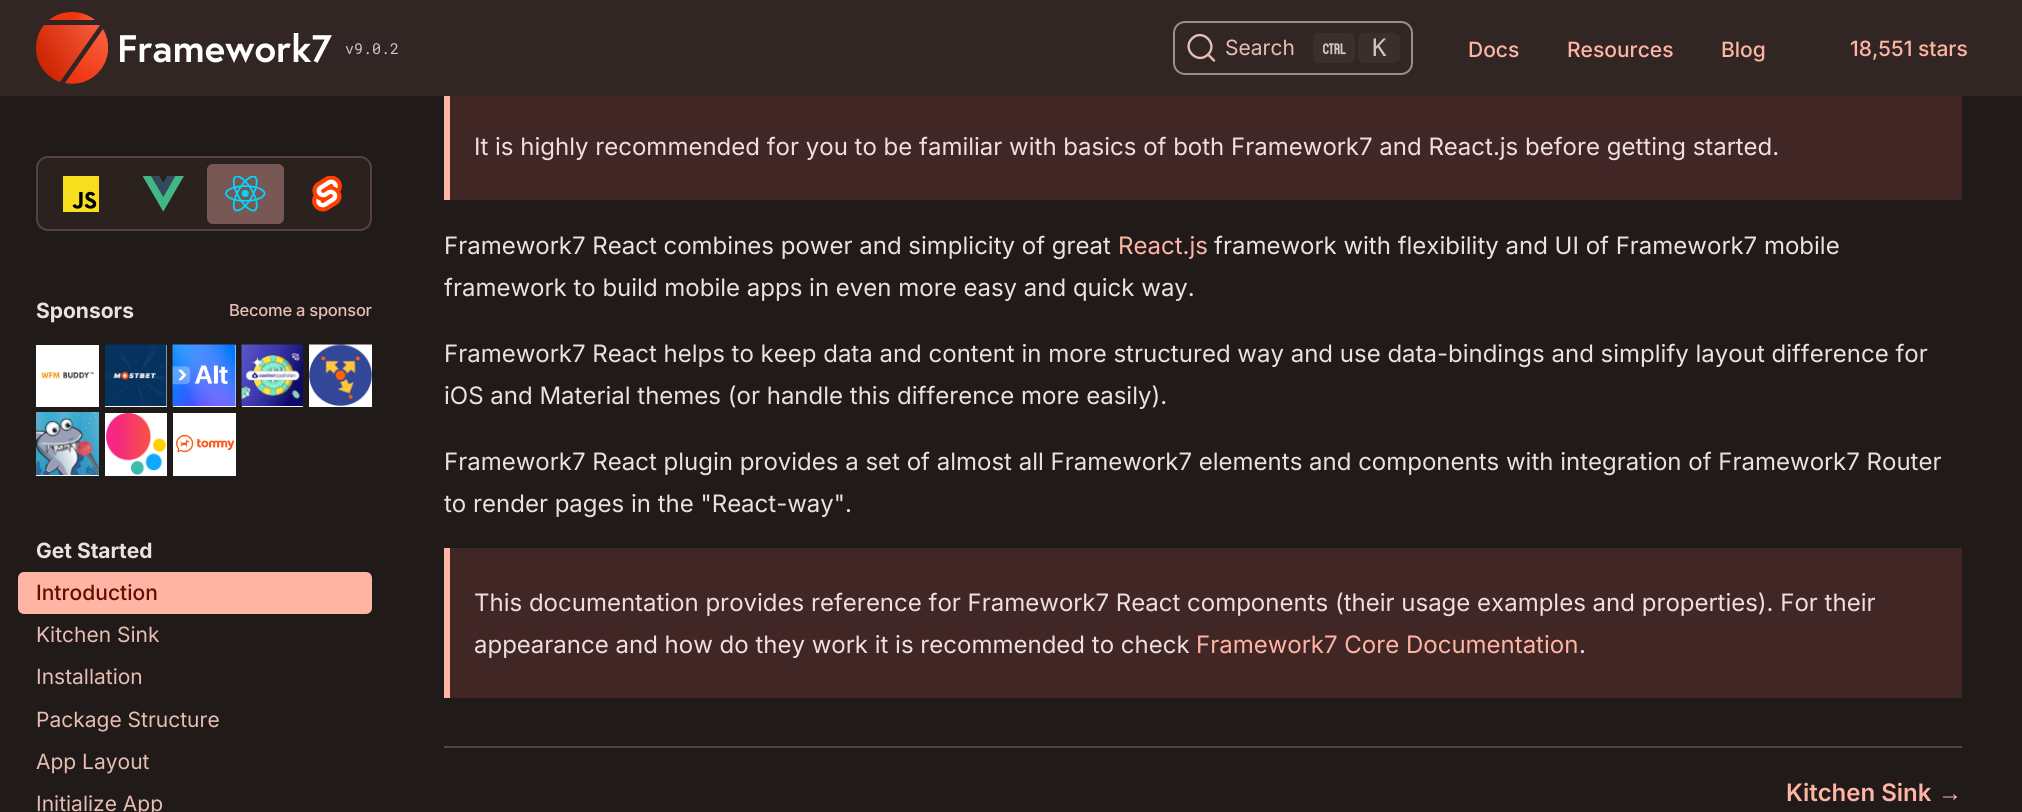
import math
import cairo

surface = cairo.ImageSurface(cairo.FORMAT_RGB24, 2022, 812)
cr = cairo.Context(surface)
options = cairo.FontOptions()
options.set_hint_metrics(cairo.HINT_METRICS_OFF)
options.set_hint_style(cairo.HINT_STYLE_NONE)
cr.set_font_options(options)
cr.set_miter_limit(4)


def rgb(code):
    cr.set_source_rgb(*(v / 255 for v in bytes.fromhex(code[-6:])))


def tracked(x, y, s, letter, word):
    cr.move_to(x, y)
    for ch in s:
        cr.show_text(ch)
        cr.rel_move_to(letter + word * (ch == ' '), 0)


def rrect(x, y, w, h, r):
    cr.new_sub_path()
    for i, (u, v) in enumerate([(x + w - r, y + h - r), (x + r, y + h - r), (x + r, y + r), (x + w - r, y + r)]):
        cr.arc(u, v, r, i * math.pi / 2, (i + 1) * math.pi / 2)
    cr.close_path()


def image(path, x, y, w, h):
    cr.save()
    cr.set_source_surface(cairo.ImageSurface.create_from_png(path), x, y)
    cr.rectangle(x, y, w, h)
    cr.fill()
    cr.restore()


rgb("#201a19")
cr.paint()
rgb("#ffb4a4")
cr.rectangle(444, 92, 6, 108)
cr.fill()
rgb("#322624")
cr.rectangle(0, 0, 2022, 96)
cr.fill()
gradient = cairo.LinearGradient(100, 31, 44, 66)
gradient.add_color_stop_rgba(0, 0.976, 0.357, 0.227, 1)
gradient.add_color_stop_rgba(1, 0.808, 0.145, 0.012, 1)
cr.set_source(gradient)
cr.set_fill_rule(cairo.FILL_RULE_EVEN_ODD)
cr.new_path()
cr.move_to(36, 48)
cr.curve_to(36, 39, 39, 31, 44, 25)
cr.line_to(100, 25)
cr.line_to(60, 82)
cr.curve_to(46, 77, 36, 64, 36, 48)
cr.close_path()
cr.fill()
cr.save()
cr.set_fill_rule(cairo.FILL_RULE_WINDING)
cr.rectangle(36, 12, 72, 72)
cr.clip()
gradient = cairo.LinearGradient(97, 34, 69, 76)
gradient.add_color_stop_rgba(0, 0.976, 0.357, 0.227, 1)
gradient.add_color_stop_rgba(1, 0.933, 0.208, 0.059, 1)
cr.set_source(gradient)
cr.set_fill_rule(cairo.FILL_RULE_EVEN_ODD)
cr.new_path()
cr.move_to(103, 29)
cr.curve_to(119, 56, 96, 89, 65, 83)
cr.close_path()
cr.fill()
cr.restore()
gradient = cairo.LinearGradient(95, 16, 77, 9)
gradient.add_color_stop_rgba(0, 0.976, 0.357, 0.227, 1)
gradient.add_color_stop_rgba(1, 0.933, 0.208, 0.059, 1)
cr.set_source(gradient)
cr.new_path()
cr.move_to(72, 12)
cr.curve_to(81, 12, 89, 15, 95, 20)
cr.line_to(49, 20)
cr.curve_to(55, 15, 63, 12, 72, 12)
cr.close_path()
cr.fill()
image("img/1.png", 120, 33, 212, 30)
rrect(1174, 22, 238, 52, 11)
rgb("#a08c88")
cr.stroke()
cr.new_path()
cr.move_to(1208, 54.5)
cr.line_to(1214, 60.5)
cr.line_to(1208, 54.5)
cr.curve_to(1197.5, 65, 1181.5, 49, 1192, 38.5)
cr.curve_to(1202.5, 28, 1218.5, 44, 1208, 54.5)
cr.close_path()
rgb("#e7bdb4")
cr.set_line_width(2.4)
cr.set_line_cap(cairo.LINE_CAP_ROUND)
cr.set_line_join(cairo.LINE_JOIN_ROUND)
cr.stroke()
rgb("#3b2f2d")
rrect(1313, 33, 42, 30, 6)
cr.fill()
image("img/2.png", 1323, 43, 23, 12)
rrect(1358, 33, 42, 30, 6)
cr.fill()
rgb("#2b2220")
rrect(37, 157, 334, 73, 11)
cr.fill_preserve()
rgb("#534340")
cr.set_line_width(2)
cr.set_line_cap(cairo.LINE_CAP_BUTT)
cr.set_line_join(cairo.LINE_JOIN_MITER)
cr.stroke()
image("img/3.png", 63, 176, 36, 36)
image("img/4.png", 143, 176, 41, 36)
rgb("#775854")
rrect(207, 164, 77, 60, 6)
cr.fill()
image("img/5.png", 225, 176, 41, 36)
image("img/6.png", 312, 176, 30, 36)
rgb("#ffffff")
cr.rectangle(36, 345, 63, 62)
cr.fill()
image("img/7.png", 41, 372, 53, 7)
cr.rectangle(105, 345, 62, 62)
cr.fill()
image("img/8.png", 105, 344, 62, 62)
cr.rectangle(173, 345, 63, 62)
cr.fill()
image("img/9.png", 172, 344, 64, 62)
cr.rectangle(242, 406, 61, 1)
cr.fill()
image("img/10.png", 241, 344, 62, 62)
cr.rectangle(309, 406, 63, 1)
cr.fill()
image("img/11.png", 309, 344, 63, 62)
cr.rectangle(36, 475, 63, 1)
cr.fill()
image("img/12.png", 36, 412, 63, 63)
cr.rectangle(105, 413, 62, 63)
cr.fill()
image("img/13.png", 106, 413, 61, 62)
cr.rectangle(173, 413, 63, 63)
cr.fill()
image("img/14.png", 175, 434, 60, 19)
rgb("#ffb4a4")
rrect(18, 572, 354, 42, 6)
cr.fill()
for x, y, w, h, color in [
    (450, 96, 1512, 104, "#412626"),
    (450, 548, 1512, 150, "#412626"),
    (444, 548, 6, 150, "#ffb4a4"),
    (444, 746, 1518, 2, "#534340"),
]:
    rgb(color)
    cr.rectangle(x, y, w, h)
    cr.fill()
cr.select_font_face("Roboto Mono")
cr.set_font_size(15)
rgb("#ccc9c8")
cr.move_to(345, 54)
cr.show_text("v9.0.2")
cr.select_font_face("Inter")
cr.set_font_size(21)
rgb("#e7bdb4")
cr.move_to(1225, 55)
cr.show_text("Search")
cr.select_font_face("DejaVu Sans Mono")
cr.set_font_size(24)
rgb("#d6c3c0")
cr.move_to(1372, 56)
cr.show_text("K")
cr.select_font_face("Inter Medium")
cr.set_font_size(21)
rgb("#ffb4a4")
for x, y, s in [
    (1468, 57, "Docs"),
    (1567, 57, "Resources"),
    (1721, 57, "Blog"),
    (1850, 56, "18,551 stars"),
]:
    cr.move_to(x, y)
    cr.show_text(s)
cr.select_font_face("Inter", cairo.FONT_SLANT_NORMAL, cairo.FONT_WEIGHT_BOLD)
rgb("#ede0dd")
cr.move_to(36, 318)
cr.show_text("Sponsors")
cr.select_font_face("Inter Medium")
cr.set_font_size(16.5)
rgb("#e7bdb4")
tracked(229, 316, "Become a sponsor", -0.25, 0)
cr.select_font_face("Inter", cairo.FONT_SLANT_NORMAL, cairo.FONT_WEIGHT_BOLD)
cr.set_font_size(21)
rgb("#ede0dd")
cr.move_to(36, 558)
cr.show_text("Get Started")
cr.select_font_face("Inter Medium")
rgb("#640d00")
cr.move_to(36, 600)
cr.show_text("Introduction")
cr.select_font_face("Inter")
rgb("#e7bdb4")
for x, y, s in [
    (36, 642, "Kitchen Sink"),
    (36, 684, "Installation"),
    (36, 727, "Package Structure"),
    (36, 769, "App Layout"),
    (36, 811, "Initialize App"),
]:
    cr.move_to(x, y)
    cr.show_text(s)
cr.set_font_size(24)
rgb("#ede0dd")
cr.move_to(474, 155)
cr.show_text("It is highly recommended for you to be familiar with basics of both Framework7 and React.js before getting started.")
cr.move_to(444, 254)
cr.show_text("Framework7 React combines power and simplicity of great")
rgb("#ffb4a4")
cr.move_to(1118, 254)
cr.show_text("React.js")
rgb("#ede0dd")
for x, y, s in [
    (1214, 254, "framework with flexibility and UI of Framework7 mobile"),
    (444, 296, "framework to build mobile apps in even more easy and quick way."),
    (444, 362, "Framework7 React helps to keep data and content in more structured way and use data-bindings and simplify layout difference for"),
    (444, 404, "iOS and Material themes (or handle this difference more easily)."),
    (444, 470, "Framework7 React plugin provides a set of almost all Framework7 elements and components with integration of Framework7 Router"),
    (444, 512, "to render pages in the \"React-way\"."),
    (474, 611, "This documentation provides reference for Framework7 React components (their usage examples and properties). For their"),
    (474, 653, "appearance and how do they work it is recommended to check"),
]:
    cr.move_to(x, y)
    cr.show_text(s)
rgb("#ffb4a4")
cr.move_to(1196, 653)
cr.show_text("Framework7 Core Documentation")
rgb("#ede0dd")
cr.move_to(1579, 653)
cr.show_text(".")
cr.select_font_face("Inter SemiBold")
rgb("#ffb4a4")
cr.move_to(1786, 801)
cr.show_text("Kitchen Sink")
cr.select_font_face("Liberation Sans", cairo.FONT_SLANT_NORMAL, cairo.FONT_WEIGHT_BOLD)
cr.move_to(1938, 801)
cr.show_text("→")
surface.write_to_png("page.png")
